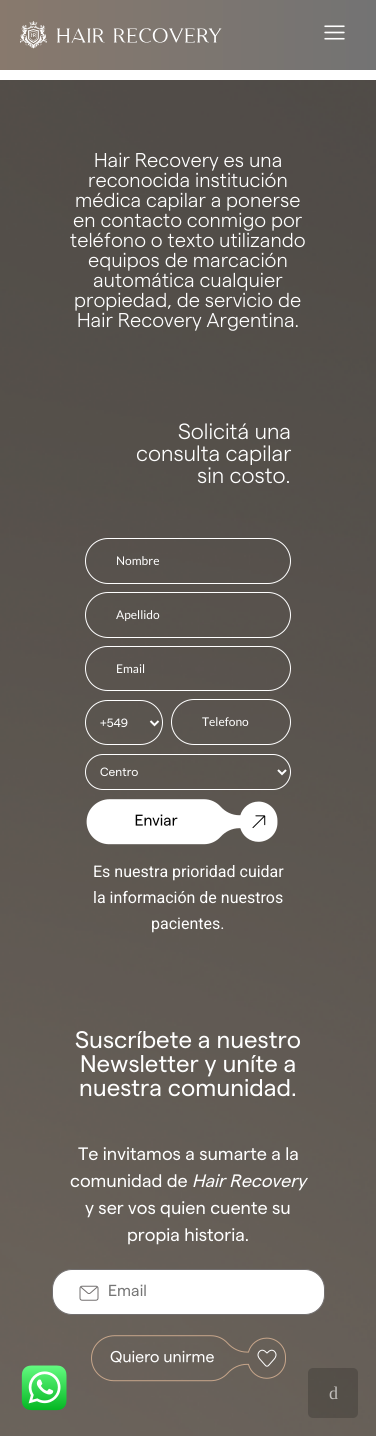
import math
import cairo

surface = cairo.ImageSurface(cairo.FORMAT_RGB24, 376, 1436)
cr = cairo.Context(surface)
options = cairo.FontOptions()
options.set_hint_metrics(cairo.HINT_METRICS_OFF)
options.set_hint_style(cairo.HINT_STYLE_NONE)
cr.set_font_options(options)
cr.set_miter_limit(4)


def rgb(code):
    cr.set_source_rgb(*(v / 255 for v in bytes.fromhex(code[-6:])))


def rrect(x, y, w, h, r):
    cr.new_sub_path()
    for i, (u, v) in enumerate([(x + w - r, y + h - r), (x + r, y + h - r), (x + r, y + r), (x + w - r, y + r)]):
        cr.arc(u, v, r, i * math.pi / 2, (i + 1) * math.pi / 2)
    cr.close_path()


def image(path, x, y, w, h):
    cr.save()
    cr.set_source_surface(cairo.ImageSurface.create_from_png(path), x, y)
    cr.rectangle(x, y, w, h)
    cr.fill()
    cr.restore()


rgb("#ffffff")
cr.paint()
gradient = cairo.LinearGradient(0, 35, 376, 35)
gradient.add_color_stop_rgba(0, 0.533, 0.475, 0.427, 1)
gradient.add_color_stop_rgba(1, 0.451, 0.451, 0.451, 1)
cr.set_source(gradient)
cr.rectangle(0, 0, 376, 70)
cr.fill()
image("img/1.png", 20, 21, 202, 28)
image("img/2.png", 324, 25, 21, 15)
image("img/3.png", 0, 80, 376, 1356)
rrect(85.5, 538.5, 205, 45, 22.5)
rgb("#ffffff")
cr.set_line_width(1)
cr.stroke()
rrect(85.5, 592.5, 205, 45, 22.5)
cr.stroke()
rrect(85.5, 646.5, 205, 44, 22)
cr.stroke()
rrect(85.5, 700.5, 77, 44, 22)
cr.stroke()
cr.new_path()
cr.move_to(150.5, 721)
cr.line_to(154.5, 725)
cr.line_to(158.5, 721)
cr.set_line_width(2)
cr.stroke()
rrect(171.5, 699.5, 119, 45, 22.5)
cr.set_line_width(1)
cr.stroke()
rrect(85.5, 754.5, 205, 35, 17.5)
cr.stroke()
cr.new_path()
cr.move_to(278, 770)
cr.line_to(282, 774)
cr.line_to(286, 770)
cr.set_line_width(2)
cr.stroke()
image("img/4.png", 86, 799, 192, 46)
rrect(52.5, 1269.5, 272, 45, 19.5)
cr.fill_preserve()
rgb("#726f6f")
cr.set_line_width(1)
cr.stroke()
image("img/5.png", 79, 1285, 20, 16)
image("img/6.png", 91, 1335, 195, 47)
image("img/7.png", 21, 1365, 46, 46)
cr.set_source_rgba(0, 0, 0, 0.18)
rrect(308, 1368, 50, 50, 5)
cr.fill()
cr.select_font_face("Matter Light")
cr.set_font_size(20)
rgb("#ffffff")
for x, y, s in [
    (94, 167, "Hair Recovery es una"),
    (88, 187, "reconocida institución"),
    (75, 207, "médica capilar a ponerse"),
    (73, 227, "en contacto conmigo por"),
    (70, 247, "teléfono o texto utilizando"),
    (88, 267, "equipos de marcación"),
    (93, 287, "automática cualquier"),
    (74, 307, "propiedad, de servicio de"),
    (77, 327, "Hair Recovery Argentina."),
]:
    cr.move_to(x, y)
    cr.show_text(s)
cr.set_font_size(22)
for x, y, s in [
    (178, 439, "Solicitá una"),
    (136, 461, "consulta capilar"),
    (197, 483, "sin costo."),
]:
    cr.move_to(x, y)
    cr.show_text(s)
cr.select_font_face("Lato")
cr.set_font_size(12)
for x, y, s in [
    (116, 565, "Nombre"),
    (116, 619, "Apellido"),
    (116, 673, "Email"),
]:
    cr.move_to(x, y)
    cr.show_text(s)
cr.select_font_face("Matter")
cr.move_to(100, 727)
cr.show_text("+549")
cr.select_font_face("Lato")
cr.move_to(202, 726)
cr.show_text("Telefono")
cr.select_font_face("Matter")
cr.move_to(100, 776)
cr.show_text("Centro")
cr.select_font_face("Roboto")
cr.set_font_size(16)
for x, y, s in [
    (93, 877, "Es nuestra prioridad cuidar"),
    (93, 903, "la información de nuestros"),
    (151, 929, "pacientes."),
]:
    cr.move_to(x, y)
    cr.show_text(s)
cr.select_font_face("Matter")
cr.set_font_size(24)
for x, y, s in [
    (75, 1048, "Suscríbete a nuestro"),
    (80, 1072, "Newsletter y uníte a"),
    (79, 1096, "nuestra comunidad."),
]:
    cr.move_to(x, y)
    cr.show_text(s)
cr.set_font_size(18)
cr.move_to(78, 1160)
cr.show_text("Te invitamos a sumarte a la")
cr.move_to(70, 1187)
cr.show_text("comunidad de")
cr.select_font_face("Matter", cairo.FONT_SLANT_ITALIC)
cr.move_to(192, 1187)
cr.show_text("Hair Recovery")
cr.select_font_face("Matter")
cr.move_to(85, 1214)
cr.show_text("y ser vos quien cuente su")
cr.move_to(127, 1241)
cr.show_text("propia historia.")
cr.set_font_size(16)
rgb("#757575")
cr.move_to(108, 1296)
cr.show_text("Email")
cr.select_font_face("Liberation Serif")
cr.set_font_size(18)
rgb("#c2bfbc")
cr.move_to(329, 1399)
cr.show_text("d")
surface.write_to_png("page.png")
